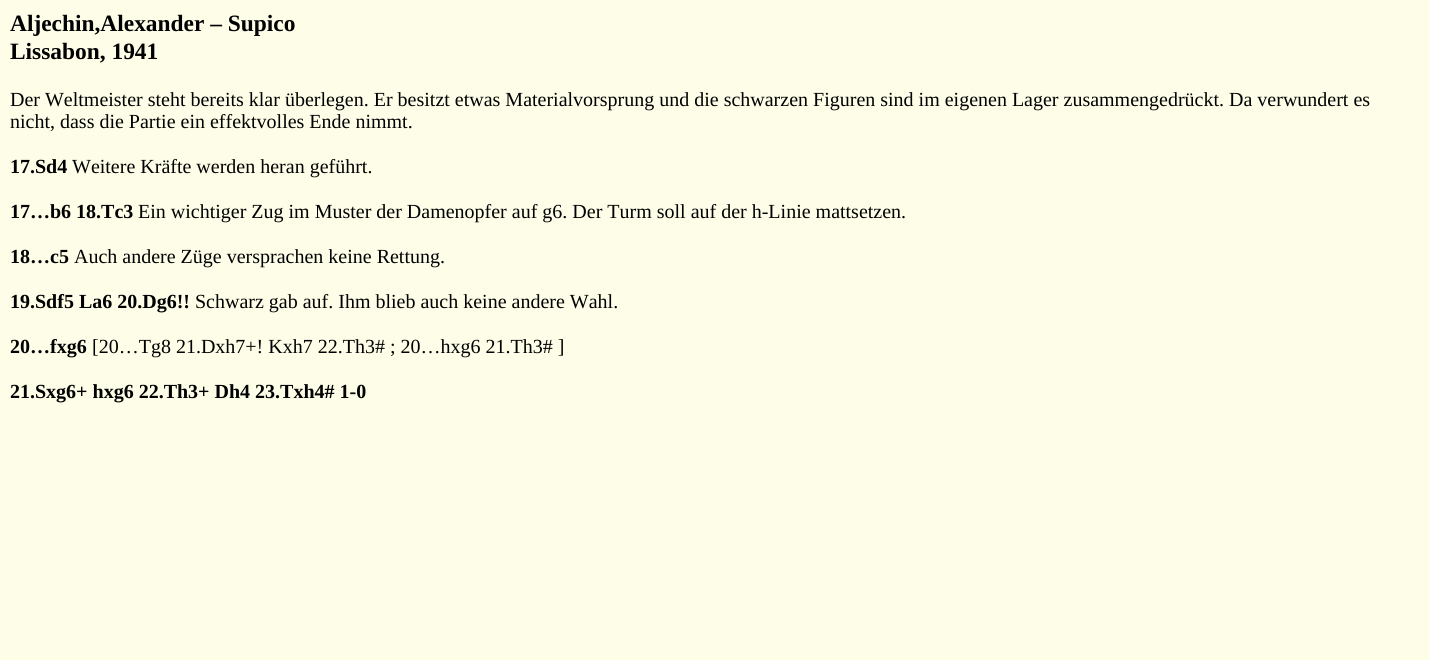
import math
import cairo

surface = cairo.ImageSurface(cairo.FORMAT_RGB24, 1429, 660)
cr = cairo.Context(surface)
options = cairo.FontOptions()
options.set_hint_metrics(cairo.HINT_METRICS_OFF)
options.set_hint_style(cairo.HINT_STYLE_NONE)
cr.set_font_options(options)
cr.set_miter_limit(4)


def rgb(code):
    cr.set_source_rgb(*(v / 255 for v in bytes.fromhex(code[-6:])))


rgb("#fefde8")
cr.paint()
cr.select_font_face("Liberation Serif", cairo.FONT_SLANT_NORMAL, cairo.FONT_WEIGHT_BOLD)
cr.set_font_size(23.4)
rgb("#000000")
cr.move_to(10, 31)
cr.show_text("Aljechin,Alexander – Supico")
cr.move_to(10, 59)
cr.show_text("Lissabon, 1941")
cr.select_font_face("Liberation Serif")
cr.set_font_size(20)
cr.move_to(10, 106)
cr.show_text("Der Weltmeister steht bereits klar überlegen. Er besitzt etwas Materialvorsprung und die schwarzen Figuren sind im eigenen Lager zusammengedrückt. Da verwundert es")
cr.move_to(10, 128)
cr.show_text("nicht, dass die Partie ein effektvolles Ende nimmt.")
cr.select_font_face("Liberation Serif", cairo.FONT_SLANT_NORMAL, cairo.FONT_WEIGHT_BOLD)
cr.move_to(10, 173)
cr.show_text("17.Sd4")
cr.select_font_face("Liberation Serif")
cr.move_to(72, 173)
cr.show_text("Weitere Kräfte werden heran geführt.")
cr.select_font_face("Liberation Serif", cairo.FONT_SLANT_NORMAL, cairo.FONT_WEIGHT_BOLD)
cr.move_to(10, 218)
cr.show_text("17…b6 18.Tc3")
cr.select_font_face("Liberation Serif")
cr.move_to(138, 218)
cr.show_text("Ein wichtiger Zug im Muster der Damenopfer auf g6. Der Turm soll auf der h-Linie mattsetzen.")
cr.select_font_face("Liberation Serif", cairo.FONT_SLANT_NORMAL, cairo.FONT_WEIGHT_BOLD)
cr.move_to(10, 263)
cr.show_text("18…c5")
cr.select_font_face("Liberation Serif")
cr.move_to(74, 263)
cr.show_text("Auch andere Züge versprachen keine Rettung.")
cr.select_font_face("Liberation Serif", cairo.FONT_SLANT_NORMAL, cairo.FONT_WEIGHT_BOLD)
cr.move_to(10, 308)
cr.show_text("19.Sdf5 La6 20.Dg6!!")
cr.select_font_face("Liberation Serif")
cr.move_to(195, 308)
cr.show_text("Schwarz gab auf. Ihm blieb auch keine andere Wahl.")
cr.select_font_face("Liberation Serif", cairo.FONT_SLANT_NORMAL, cairo.FONT_WEIGHT_BOLD)
cr.move_to(10, 353)
cr.show_text("20…fxg6")
cr.select_font_face("Liberation Serif")
cr.move_to(92, 353)
cr.show_text("[20…Tg8 21.Dxh7+! Kxh7 22.Th3# ; 20…hxg6 21.Th3# ]")
cr.select_font_face("Liberation Serif", cairo.FONT_SLANT_NORMAL, cairo.FONT_WEIGHT_BOLD)
cr.move_to(10, 398)
cr.show_text("21.Sxg6+ hxg6 22.Th3+ Dh4 23.Txh4# 1-0")
surface.write_to_png("page.png")
